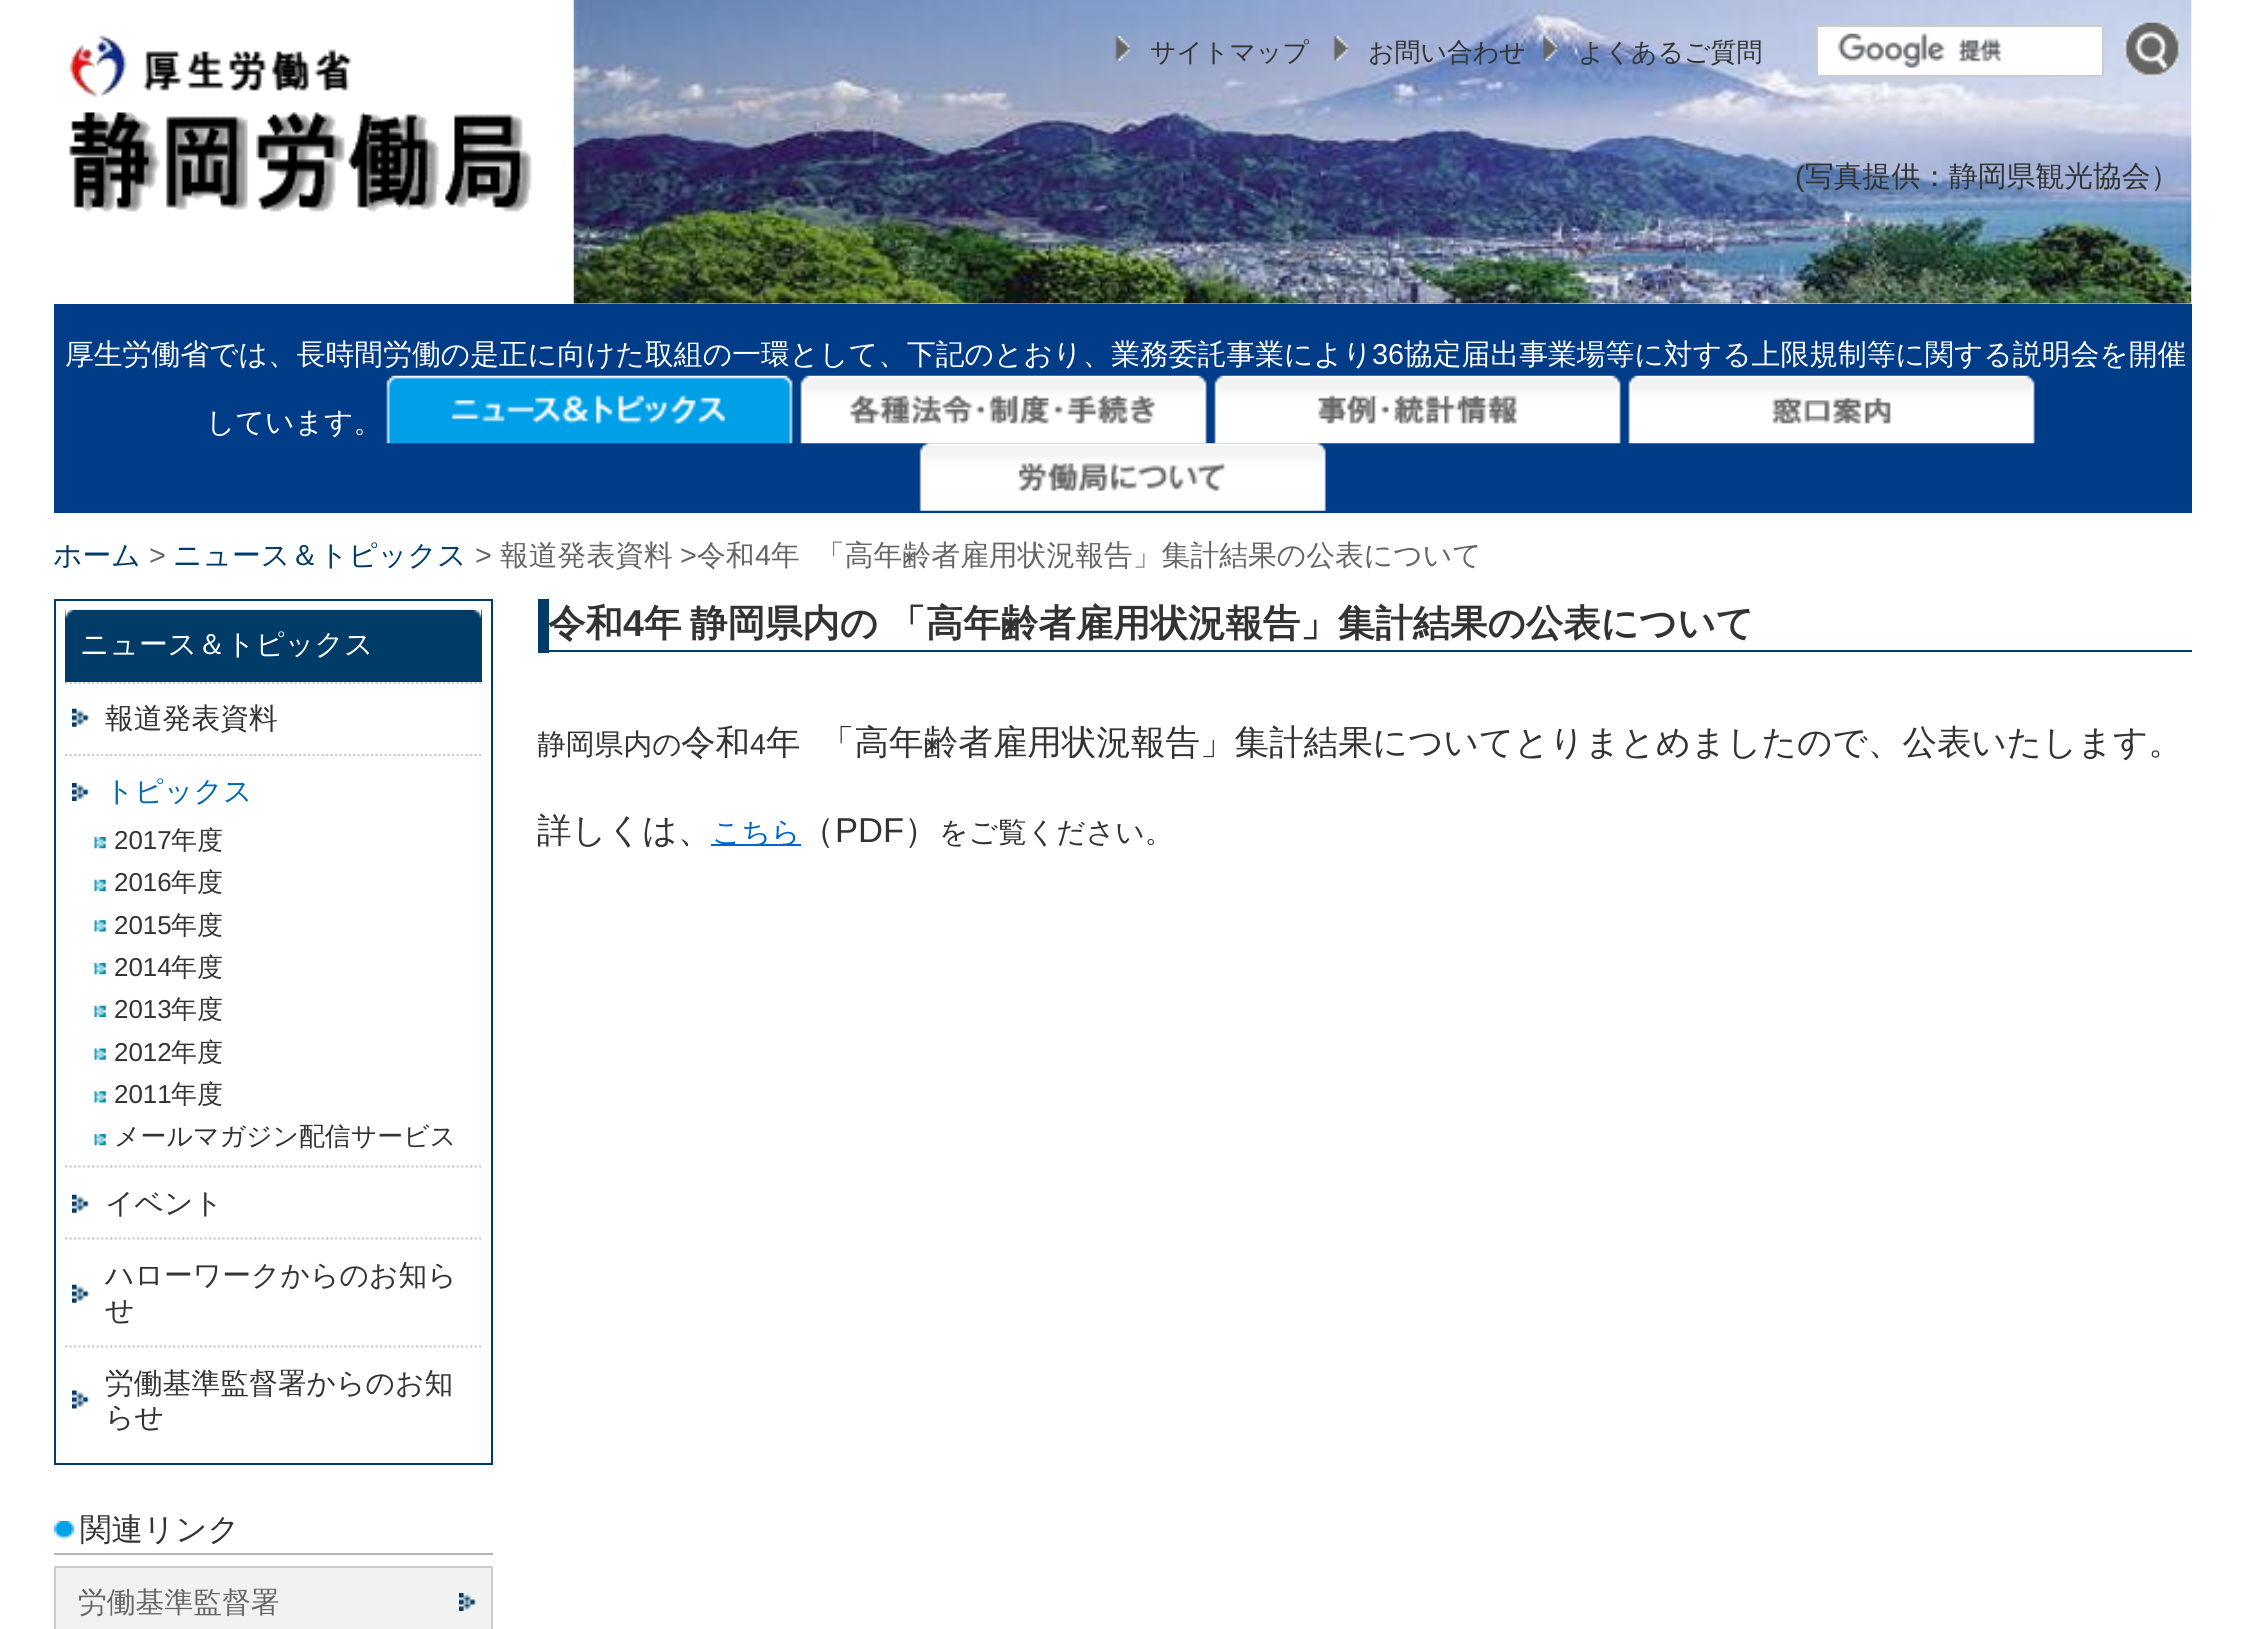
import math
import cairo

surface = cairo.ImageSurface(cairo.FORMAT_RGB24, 2242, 1629)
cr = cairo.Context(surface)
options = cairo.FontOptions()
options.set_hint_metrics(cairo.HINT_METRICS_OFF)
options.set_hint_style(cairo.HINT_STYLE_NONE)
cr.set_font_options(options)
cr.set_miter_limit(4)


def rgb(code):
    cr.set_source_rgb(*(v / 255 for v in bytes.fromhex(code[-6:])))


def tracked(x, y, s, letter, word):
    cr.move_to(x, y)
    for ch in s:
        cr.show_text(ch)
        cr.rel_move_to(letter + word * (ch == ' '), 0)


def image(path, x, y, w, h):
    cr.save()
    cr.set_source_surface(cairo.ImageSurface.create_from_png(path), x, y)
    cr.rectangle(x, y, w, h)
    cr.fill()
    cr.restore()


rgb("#ffffff")
cr.paint()
image("img/1.png", 573, 0, 1619, 304)
image("img/2.png", 69, 35, 463, 177)
image("img/3.png", 1115, 36, 16, 25)
image("img/4.png", 1333, 36, 16, 25)
image("img/5.png", 1543, 36, 15, 25)
rgb("#ffffff")
cr.rectangle(1818, 27, 284, 48)
cr.fill()
image("img/6.png", 1838, 33, 164, 35)
cr.rectangle(1817, 26, 286, 50)
rgb("#cccccc")
cr.stroke()
image("img/7.png", 2124, 22, 57, 55)
rgb("#003c87")
cr.rectangle(54, 304, 2138, 209)
cr.fill()
image("img/8.png", 386, 375, 407, 69)
image("img/9.png", 800, 375, 407, 69)
image("img/10.png", 1214, 375, 407, 69)
image("img/11.png", 1628, 375, 407, 69)
image("img/12.png", 919, 443, 407, 68)
cr.rectangle(55, 600, 437, 864)
rgb("#003c67")
cr.stroke()
cr.rectangle(65, 610, 417, 72)
cr.fill()
image("img/13.png", 65, 609, 417, 10)
image("img/14.png", 72, 708, 17, 19)
cr.save()
cr.rectangle(65, 682, 417, 772)
cr.clip()
cr.new_path()
cr.move_to(65, 683)
cr.line_to(481.5, 683)
rgb("#cccccc")
cr.set_line_width(2.2)
cr.set_dash([2.25, 2.25])
cr.stroke()
cr.restore()
image("img/15.png", 72, 783, 17, 18)
cr.new_path()
cr.move_to(65, 755)
cr.line_to(481.5, 755)
rgb("#cccccc")
cr.set_line_width(2.2)
cr.set_dash([2.25, 2.25])
cr.stroke()
image("img/16.png", 94, 837, 12, 12)
image("img/17.png", 94, 879, 12, 12)
image("img/18.png", 94, 920, 12, 12)
image("img/16.png", 94, 963, 12, 12)
image("img/17.png", 94, 1005, 12, 12)
image("img/19.png", 94, 1048, 12, 12)
image("img/18.png", 94, 1091, 12, 12)
image("img/16.png", 94, 1134, 12, 12)
image("img/14.png", 72, 1194, 17, 19)
cr.new_path()
cr.move_to(65, 1166.5)
cr.line_to(481.5, 1166.5)
cr.stroke()
image("img/20.png", 72, 1284, 17, 19)
cr.new_path()
cr.move_to(65, 1238.5)
cr.line_to(481.5, 1238.5)
cr.stroke()
image("img/21.png", 72, 1390, 17, 19)
cr.new_path()
cr.move_to(65, 1346.5)
cr.line_to(481.5, 1346.5)
cr.stroke()
image("img/22.png", 54, 1521, 21, 18)
rgb("#b3b3b3")
cr.rectangle(54, 1553, 439, 2)
cr.fill()
rgb("#f2f2f2")
cr.rectangle(56, 1568, 435, 61)
cr.fill()
image("img/23.png", 459, 1593, 17, 18)
cr.rectangle(55, 1567, 437, 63)
rgb("#cccccc")
cr.set_line_width(2)
cr.set_dash([])
cr.stroke()
for x, y, w, h, color in [
    (549, 650, 1643, 2, "#003c67"),
    (538, 599, 11, 54, "#003c67"),
    (711, 844, 90, 2, "#0066cc"),
]:
    rgb(color)
    cr.rectangle(x, y, w, h)
    cr.fill()
cr.select_font_face("WenQuanYi Zen Hei Medium")
cr.set_font_size(25.9)
rgb("#333333")
for x, y, s in [
    (1150, 61, "サイトマップ"),
    (1368, 61, "お問い合わせ"),
    (1578, 61, "よくあるご質問"),
]:
    cr.move_to(x, y)
    cr.show_text(s)
cr.select_font_face("Liberation Sans")
cr.set_font_size(28.8)
cr.move_to(1795, 186)
cr.show_text("(")
cr.select_font_face("WenQuanYi Zen Hei Medium")
cr.move_to(1805, 186)
cr.show_text("写真提供：静岡県観光協会）")
rgb("#ffffff")
cr.move_to(65, 364)
cr.show_text("厚生労働省では、長時間労働の是正に向けた取組の一環として、下記のとおり、業務委託事業により")
cr.select_font_face("Liberation Sans")
cr.move_to(1372, 364)
cr.show_text("36")
cr.select_font_face("WenQuanYi Zen Hei Medium")
cr.move_to(1404, 364)
cr.show_text("協定届出事業場等に対する上限規制等に関する説明会を開催")
cr.move_to(206, 432)
cr.show_text("しています。")
rgb("#003c67")
cr.move_to(53, 565)
cr.show_text("ホーム")
cr.select_font_face("Liberation Sans")
rgb("#666565")
cr.move_to(149, 565)
cr.show_text(">")
cr.select_font_face("WenQuanYi Zen Hei Medium")
rgb("#003c67")
cr.move_to(173, 565)
cr.show_text("ニュース＆トピックス")
cr.select_font_face("Liberation Sans")
rgb("#666565")
cr.move_to(475, 565)
cr.show_text(">")
cr.select_font_face("WenQuanYi Zen Hei Medium")
cr.move_to(500, 565)
cr.show_text("報道発表資料")
cr.select_font_face("Liberation Sans")
cr.move_to(680, 565)
cr.show_text(">")
cr.select_font_face("WenQuanYi Zen Hei Medium")
cr.move_to(697, 565)
cr.show_text("令和")
cr.select_font_face("Liberation Sans")
cr.move_to(755, 565)
cr.show_text("4")
cr.select_font_face("WenQuanYi Zen Hei Medium")
cr.move_to(771, 565)
cr.show_text("年")
cr.move_to(816, 565)
cr.show_text("「高年齢者雇用状況報告」集計結果の公表について")
rgb("#ffffff")
cr.move_to(80, 654)
cr.show_text("ニュース＆トピックス")
rgb("#333333")
cr.move_to(105, 728)
cr.show_text("報道発表資料")
rgb("#006baf")
cr.move_to(105, 801)
cr.show_text("トピックス")
cr.select_font_face("Liberation Sans")
cr.set_font_size(25.9)
rgb("#333333")
cr.move_to(114, 849)
cr.show_text("2017")
cr.select_font_face("WenQuanYi Zen Hei Medium")
cr.move_to(171, 849)
cr.show_text("年度")
cr.select_font_face("Liberation Sans")
cr.move_to(114, 891)
cr.show_text("2016")
cr.select_font_face("WenQuanYi Zen Hei Medium")
cr.move_to(171, 891)
cr.show_text("年度")
cr.select_font_face("Liberation Sans")
cr.move_to(114, 934)
cr.show_text("2015")
cr.select_font_face("WenQuanYi Zen Hei Medium")
cr.move_to(171, 934)
cr.show_text("年度")
cr.select_font_face("Liberation Sans")
cr.move_to(114, 976)
cr.show_text("2014")
cr.select_font_face("WenQuanYi Zen Hei Medium")
cr.move_to(171, 976)
cr.show_text("年度")
cr.select_font_face("Liberation Sans")
cr.move_to(114, 1018)
cr.show_text("2013")
cr.select_font_face("WenQuanYi Zen Hei Medium")
cr.move_to(171, 1018)
cr.show_text("年度")
cr.select_font_face("Liberation Sans")
cr.move_to(114, 1061)
cr.show_text("2012")
cr.select_font_face("WenQuanYi Zen Hei Medium")
cr.move_to(171, 1061)
cr.show_text("年度")
cr.select_font_face("Liberation Sans")
cr.move_to(114, 1103)
cr.show_text("2011")
cr.select_font_face("WenQuanYi Zen Hei Medium")
cr.move_to(171, 1103)
cr.show_text("年度")
cr.move_to(114, 1145)
cr.show_text("メールマガジン配信サービス")
cr.set_font_size(28.8)
for x, y, s in [
    (105, 1213, "イベント"),
    (105, 1285, "ハローワークからのお知ら"),
    (105, 1320, "せ"),
    (105, 1393, "労働基準監督署からのお知"),
    (105, 1427, "らせ"),
]:
    cr.move_to(x, y)
    cr.show_text(s)
cr.set_font_size(31.5)
cr.move_to(80, 1540)
cr.show_text("関連リンク")
cr.set_font_size(28.8)
rgb("#666565")
cr.move_to(78, 1612)
cr.show_text("労働基準監督署")
cr.select_font_face("WenQuanYi Zen Hei", cairo.FONT_SLANT_NORMAL, cairo.FONT_WEIGHT_BOLD)
cr.set_font_size(37.45)
rgb("#333333")
cr.move_to(548, 636)
cr.show_text("令和")
cr.select_font_face("Liberation Sans", cairo.FONT_SLANT_NORMAL, cairo.FONT_WEIGHT_BOLD)
cr.move_to(623, 636)
cr.show_text("4")
cr.select_font_face("WenQuanYi Zen Hei", cairo.FONT_SLANT_NORMAL, cairo.FONT_WEIGHT_BOLD)
cr.move_to(644, 636)
cr.show_text("年")
tracked(690, 636, "静岡県内の 「高年齢者雇用状況報告」集計結果の公表について", 0, -1)
cr.save()
cr.rectangle(538, 599, 1654, 549)
cr.clip()
cr.select_font_face("WenQuanYi Zen Hei Medium")
cr.set_font_size(28.8)
cr.move_to(537, 754)
cr.show_text("静岡県内の")
cr.restore()
cr.select_font_face("WenQuanYi Zen Hei Medium")
cr.set_font_size(34.55)
cr.move_to(681, 754)
cr.show_text("令和")
cr.select_font_face("Liberation Sans")
cr.set_font_size(28.8)
cr.move_to(750, 754)
cr.show_text("4")
cr.select_font_face("WenQuanYi Zen Hei Medium")
cr.set_font_size(34.55)
cr.move_to(766, 754)
cr.show_text("年")
cr.move_to(820, 754)
cr.show_text("「高年齢者雇用状況報告」集計結果についてとりまとめましたので、公表いたします。")
cr.save()
cr.rectangle(538, 599, 1654, 549)
cr.clip()
cr.move_to(537, 842)
cr.show_text("詳しくは、")
cr.restore()
cr.set_font_size(28.8)
rgb("#0066cc")
cr.move_to(712, 842)
cr.show_text("こちら")
cr.set_font_size(34.55)
rgb("#333333")
cr.move_to(800, 842)
cr.show_text("（")
cr.select_font_face("Liberation Sans")
cr.move_to(835, 842)
cr.show_text("PDF")
cr.select_font_face("WenQuanYi Zen Hei Medium")
cr.move_to(904, 842)
cr.show_text("）")
cr.set_font_size(28.8)
cr.move_to(939, 842)
cr.show_text("をご覧ください。")
surface.write_to_png("page.png")
